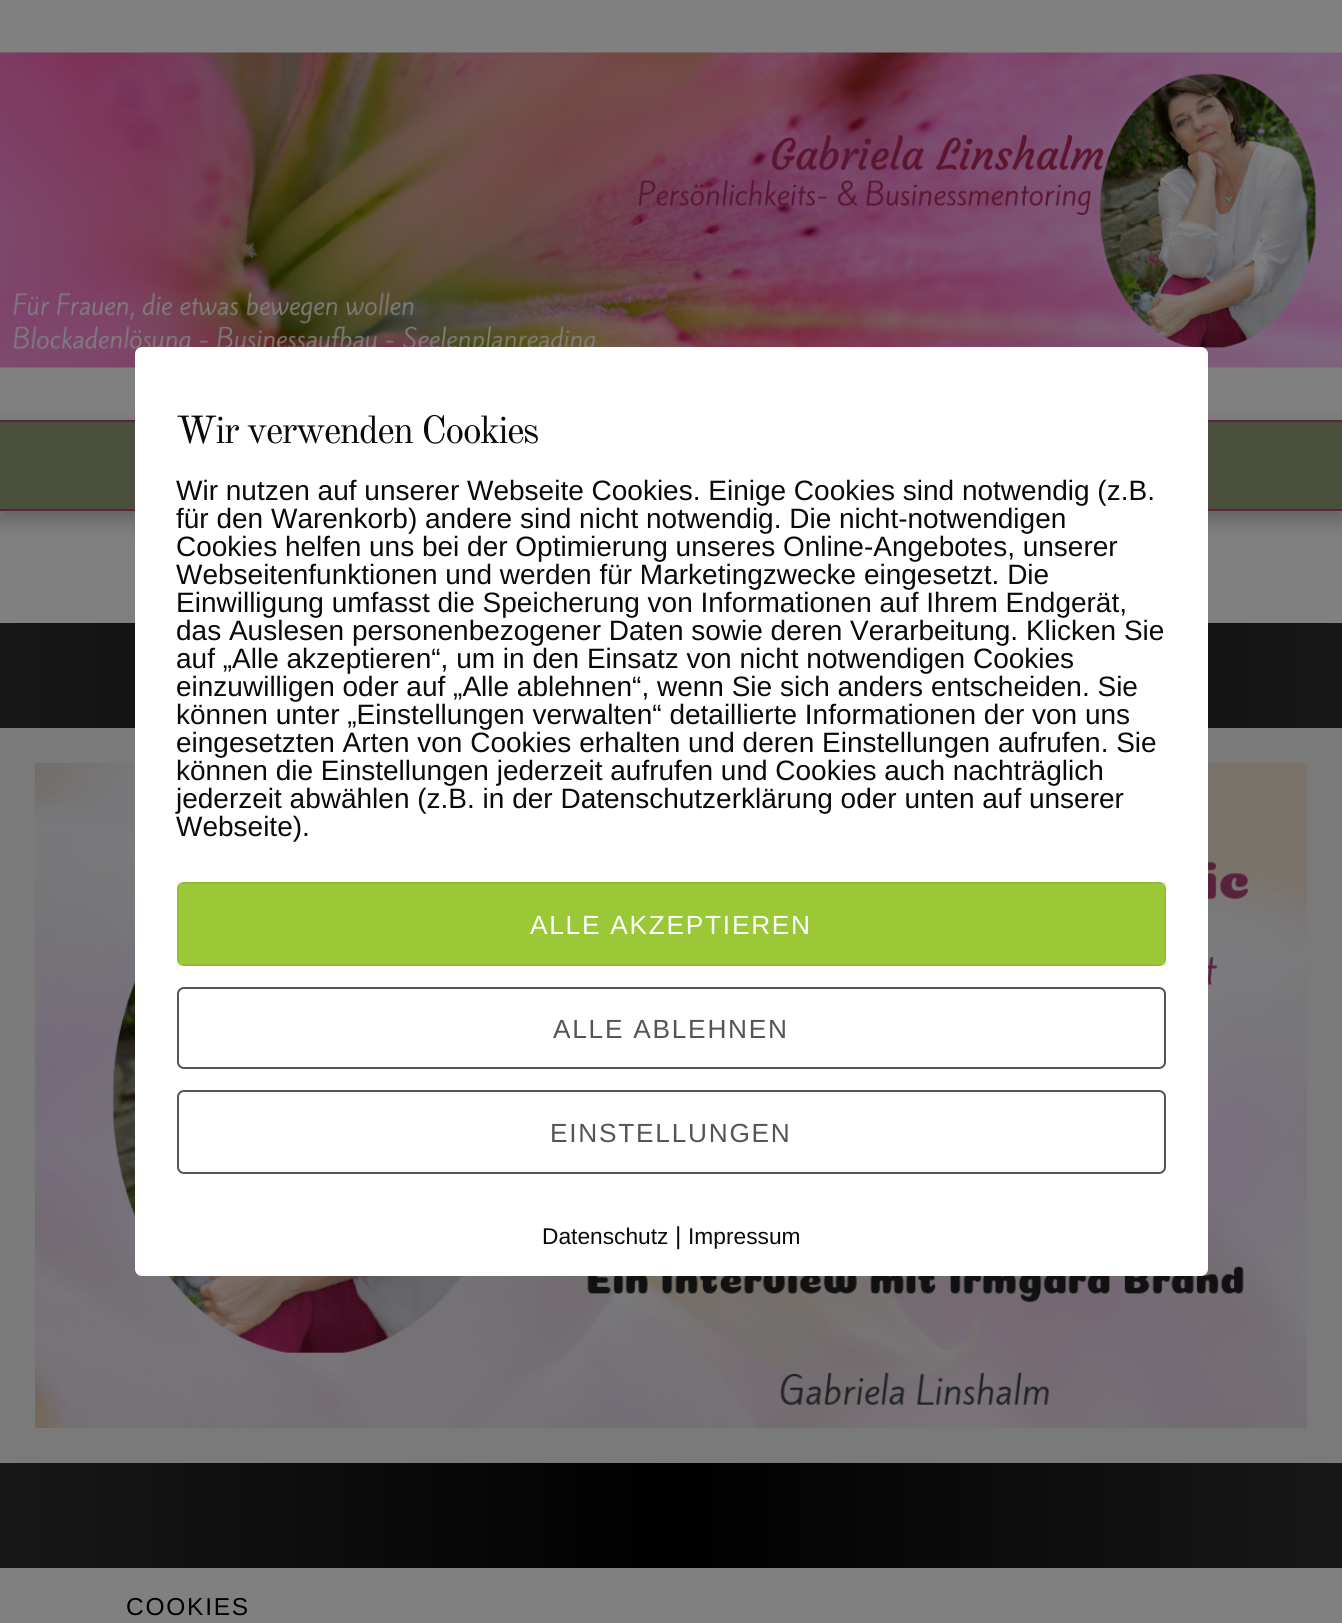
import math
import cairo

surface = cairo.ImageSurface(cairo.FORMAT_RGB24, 1342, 1623)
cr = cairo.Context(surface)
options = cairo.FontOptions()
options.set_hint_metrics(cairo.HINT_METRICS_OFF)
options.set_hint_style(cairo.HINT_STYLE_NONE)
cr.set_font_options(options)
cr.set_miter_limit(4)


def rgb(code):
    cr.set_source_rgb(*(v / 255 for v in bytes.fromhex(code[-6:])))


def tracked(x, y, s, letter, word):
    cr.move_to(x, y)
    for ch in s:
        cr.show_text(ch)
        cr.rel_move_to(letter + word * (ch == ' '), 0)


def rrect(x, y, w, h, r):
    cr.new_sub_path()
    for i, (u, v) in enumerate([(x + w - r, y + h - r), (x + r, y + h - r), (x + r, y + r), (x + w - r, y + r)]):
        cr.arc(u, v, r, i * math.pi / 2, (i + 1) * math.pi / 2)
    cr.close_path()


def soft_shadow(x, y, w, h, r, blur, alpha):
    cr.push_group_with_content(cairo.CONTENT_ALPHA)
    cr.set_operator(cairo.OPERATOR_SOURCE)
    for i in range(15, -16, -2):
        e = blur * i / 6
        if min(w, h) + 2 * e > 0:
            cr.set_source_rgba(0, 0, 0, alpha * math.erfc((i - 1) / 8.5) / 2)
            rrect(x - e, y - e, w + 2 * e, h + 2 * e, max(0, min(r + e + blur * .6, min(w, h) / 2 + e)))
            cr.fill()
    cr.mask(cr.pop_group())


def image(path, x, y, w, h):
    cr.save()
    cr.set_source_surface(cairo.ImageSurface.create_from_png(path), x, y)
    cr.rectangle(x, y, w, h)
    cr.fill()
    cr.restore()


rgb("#808080")
cr.paint()
image("img/1.png", 0, 52, 1342, 316)
rgb("#000000")
soft_shadow(0, 429, 1342, 91, 0, 9, 0.25)
for x, y, w, h, color in [
    (0, 420, 1342, 2, "#59233d"),
    (0, 509, 1342, 2, "#59233d"),
    (0, 422, 1342, 87, "#494f3a"),
]:
    rgb(color)
    cr.rectangle(x, y, w, h)
    cr.fill()
gradient = cairo.LinearGradient(0, 1096, 1342, 1096)
gradient.add_color_stop_rgba(0, 0.094, 0.094, 0.094, 1)
gradient.add_color_stop_rgba(0.5, 0, 0, 0, 1)
gradient.add_color_stop_rgba(1, 0.094, 0.094, 0.094, 1)
cr.set_source(gradient)
cr.rectangle(0, 623, 1342, 945)
cr.fill()
cr.rectangle(17.5, 745.5, 1307, 700)
rgb("#7a7a7a")
cr.set_line_width(35)
cr.stroke()
image("img/2.png", 35, 763, 1273, 665)
rgb("#ffffff")
rrect(135, 347, 1073, 929, 7)
cr.fill()
rgb("#9ac836")
rrect(177, 882, 989, 84, 7)
cr.fill()
cr.rectangle(178, 883, 987, 82)
cr.set_source_rgba(0, 0, 0, 0.06)
cr.set_line_width(2)
cr.stroke()
rrect(178, 988, 987, 80, 6)
rgb("#555555")
cr.stroke()
rrect(178, 1091, 987, 82, 6)
cr.stroke()
cr.select_font_face("Old Standard TT")
cr.set_font_size(38.5)
rgb("#0a0a0a")
tracked(176, 443, "Wir verwenden Cookies", -1.75, 0)
cr.select_font_face("Liberation Sans")
cr.set_font_size(28)
for x, y, s in [
    (176, 500, "Wir nutzen auf unserer Webseite Cookies. Einige Cookies sind notwendig (z.B."),
    (176, 528, "für den Warenkorb) andere sind nicht notwendig. Die nicht-notwendigen"),
    (176, 556, "Cookies helfen uns bei der Optimierung unseres Online-Angebotes, unserer"),
    (176, 584, "Webseitenfunktionen und werden für Marketingzwecke eingesetzt. Die"),
    (176, 612, "Einwilligung umfasst die Speicherung von Informationen auf Ihrem Endgerät,"),
    (176, 640, "das Auslesen personenbezogener Daten sowie deren Verarbeitung. Klicken Sie"),
    (176, 668, "auf „Alle akzeptieren“, um in den Einsatz von nicht notwendigen Cookies"),
    (176, 696, "einzuwilligen oder auf „Alle ablehnen“, wenn Sie sich anders entscheiden. Sie"),
    (176, 724, "können unter „Einstellungen verwalten“ detaillierte Informationen der von uns"),
    (176, 752, "eingesetzten Arten von Cookies erhalten und deren Einstellungen aufrufen. Sie"),
    (176, 780, "können die Einstellungen jederzeit aufrufen und Cookies auch nachträglich"),
    (176, 808, "jederzeit abwählen (z.B. in der Datenschutzerklärung oder unten auf unserer"),
    (176, 836, "Webseite)."),
]:
    cr.move_to(x, y)
    cr.show_text(s)
cr.set_font_size(26.25)
rgb("#ffffff")
tracked(530, 934, "ALLE AKZEPTIEREN", 1.75, 0)
rgb("#555555")
tracked(553, 1038, "ALLE ABLEHNEN", 1.75, 0)
tracked(550, 1142, "EINSTELLUNGEN", 1.75, 0)
cr.set_font_size(22.75)
rgb("#0a0a0a")
cr.move_to(542, 1244)
cr.show_text("Datenschutz")
cr.set_font_size(24.5)
cr.move_to(675, 1244)
cr.show_text("|")
cr.set_font_size(22.75)
cr.move_to(688, 1244)
cr.show_text("Impressum")
cr.set_font_size(24.5)
rgb("#000000")
tracked(126, 1615, "COOKIES", 1.75, 0)
surface.write_to_png("page.png")
